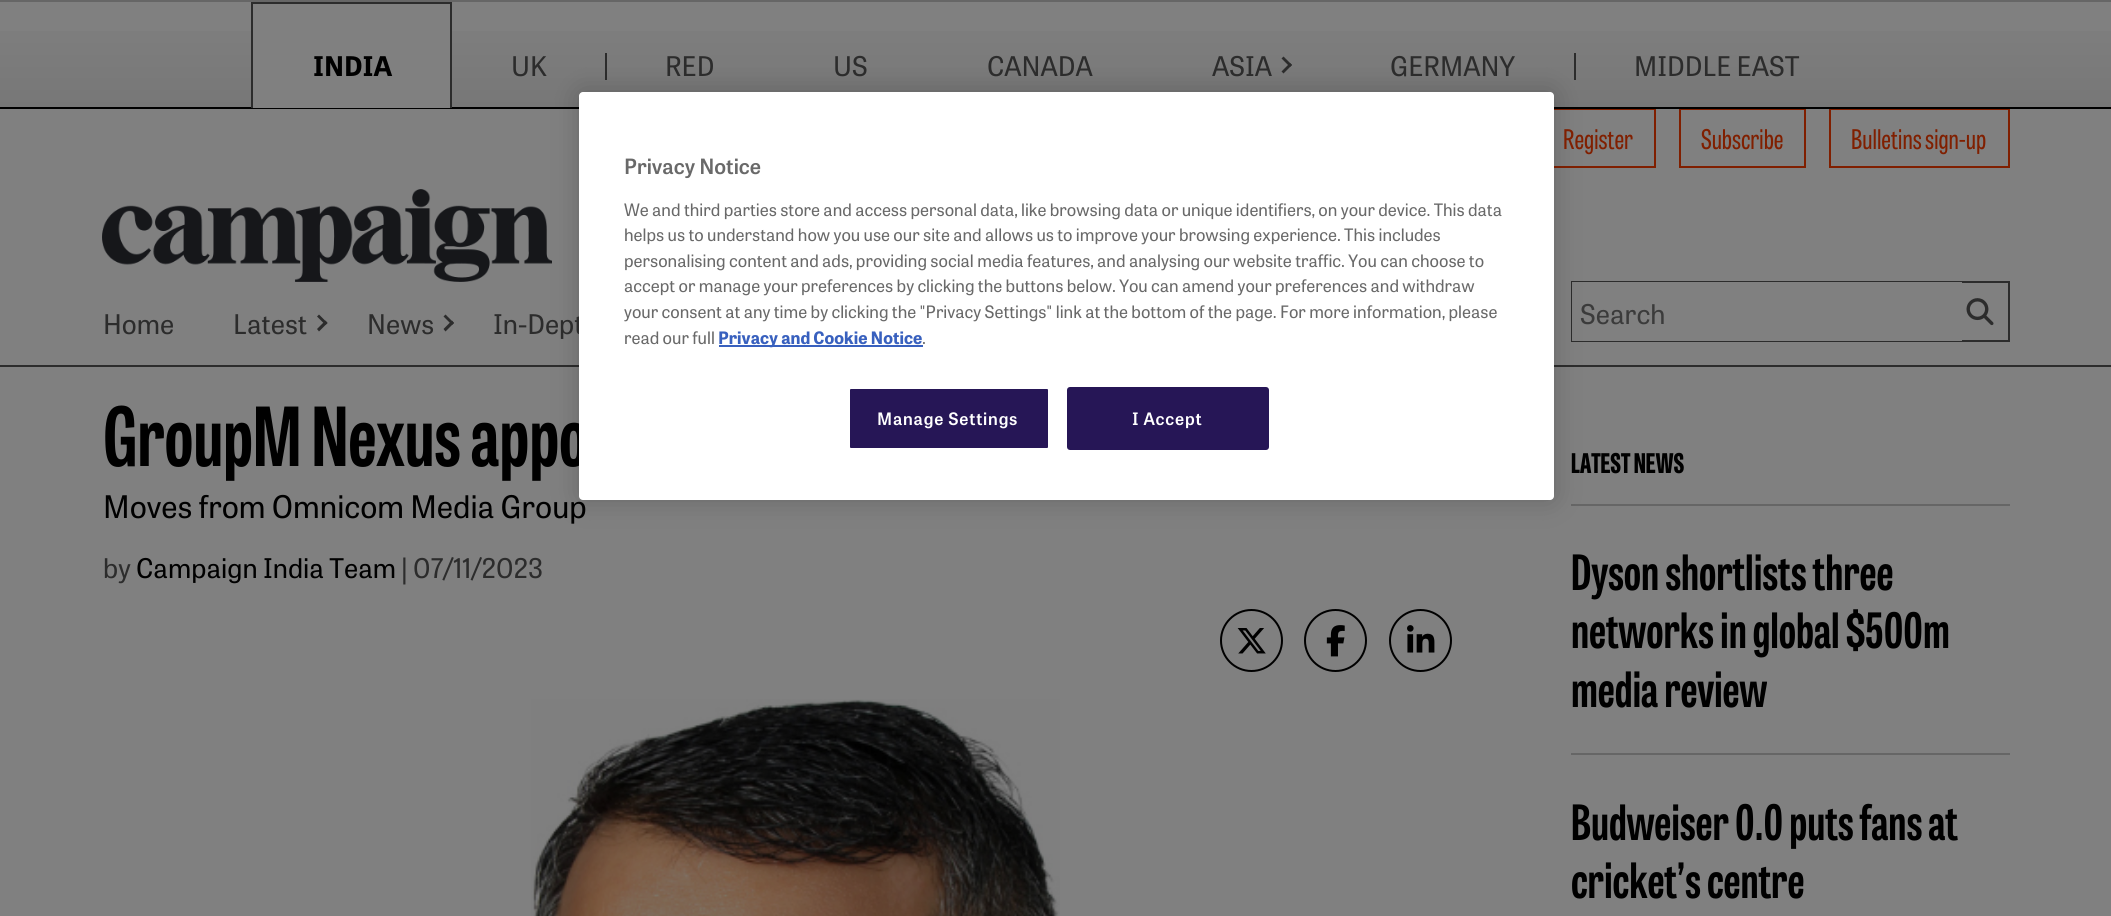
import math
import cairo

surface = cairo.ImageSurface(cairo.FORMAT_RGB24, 2111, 916)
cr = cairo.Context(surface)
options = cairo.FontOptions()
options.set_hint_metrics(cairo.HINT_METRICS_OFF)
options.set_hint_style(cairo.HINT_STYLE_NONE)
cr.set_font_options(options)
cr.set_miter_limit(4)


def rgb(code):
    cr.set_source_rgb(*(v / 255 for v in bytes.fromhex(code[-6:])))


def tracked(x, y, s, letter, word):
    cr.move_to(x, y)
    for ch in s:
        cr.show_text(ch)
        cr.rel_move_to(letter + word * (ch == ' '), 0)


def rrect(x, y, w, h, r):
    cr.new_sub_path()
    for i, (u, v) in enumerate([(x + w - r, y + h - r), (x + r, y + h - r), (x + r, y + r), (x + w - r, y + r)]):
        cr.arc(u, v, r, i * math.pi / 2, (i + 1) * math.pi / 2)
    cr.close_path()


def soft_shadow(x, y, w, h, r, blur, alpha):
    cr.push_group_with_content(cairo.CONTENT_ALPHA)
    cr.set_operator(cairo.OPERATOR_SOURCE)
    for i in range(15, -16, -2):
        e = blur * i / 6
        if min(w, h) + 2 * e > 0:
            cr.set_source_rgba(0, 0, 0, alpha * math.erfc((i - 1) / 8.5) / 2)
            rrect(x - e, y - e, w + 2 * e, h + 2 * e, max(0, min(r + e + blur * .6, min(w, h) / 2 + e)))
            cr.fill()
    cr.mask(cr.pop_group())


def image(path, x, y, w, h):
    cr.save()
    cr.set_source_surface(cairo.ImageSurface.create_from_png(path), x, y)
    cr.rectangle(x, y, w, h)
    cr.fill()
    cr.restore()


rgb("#808080")
cr.paint()
gradient = cairo.LinearGradient(1056, 1.5, 1056, 107)
gradient.add_color_stop_rgba(0, 0.502, 0.502, 0.502, 1)
gradient.add_color_stop_rgba(1, 0.467, 0.467, 0.467, 1)
cr.set_source(gradient)
cr.rectangle(0, 31, 2111, 76)
cr.fill()
rgb("#666666")
cr.rectangle(0, 0, 2111, 2)
cr.fill()
cr.rectangle(1542, 109, 113, 58)
rgb("#801f00")
cr.stroke()
cr.rectangle(1680, 109, 125, 58)
cr.stroke()
cr.rectangle(1830, 109, 179, 58)
cr.stroke()
for x, y, w, h, color in [
    (0, 107, 2111, 2, "#000000"),
    (253, 31, 197, 77, "#808080"),
    (251, 2, 201, 2, "#2c2c2c"),
    (450, 2, 2, 106, "#2c2c2c"),
    (251, 2, 2, 106, "#2c2c2c"),
    (605, 53, 2, 27, "#2c2c2c"),
]:
    rgb(color)
    cr.rectangle(x, y, w, h)
    cr.fill()
cr.new_path()
cr.move_to(1281.5, 58.5)
cr.line_to(1283.5, 56.5)
cr.line_to(1292, 65)
cr.line_to(1290, 67)
cr.close_path()
cr.fill()
cr.new_path()
cr.move_to(1281.5, 71.5)
cr.line_to(1290, 63)
cr.line_to(1292, 65)
cr.line_to(1283.5, 73.5)
cr.close_path()
cr.fill()
cr.rectangle(1574, 53, 2, 27)
cr.fill()
cr.rectangle(0, 365, 2111, 2)
cr.fill()
image("img/1.png", 102, 189, 450, 93)
cr.new_path()
cr.move_to(317, 316.5)
cr.line_to(319, 314.5)
cr.line_to(327.5, 323)
cr.line_to(325.5, 325)
cr.close_path()
cr.fill()
cr.new_path()
cr.move_to(317, 329)
cr.line_to(325.5, 320.5)
cr.line_to(327.5, 323)
cr.line_to(319, 331.5)
cr.close_path()
cr.fill()
cr.new_path()
cr.move_to(443.5, 316.5)
cr.line_to(445.5, 314.5)
cr.line_to(454, 323)
cr.line_to(452, 325)
cr.close_path()
cr.fill()
cr.new_path()
cr.move_to(443.5, 329)
cr.line_to(452, 320.5)
cr.line_to(454, 323)
cr.line_to(445.5, 331.5)
cr.close_path()
cr.fill()
cr.rectangle(1572, 282, 437, 59)
cr.stroke()
rgb("#808080")
cr.rectangle(1572, 282, 390, 59)
cr.fill()
image("img/2.png", 1966, 298, 28, 28)
cr.arc(1251.5, 640.5, 30.5, 0, 2 * math.pi)
rgb("#000000")
cr.stroke()
image("img/3.png", 1237, 628, 29, 26)
cr.arc(1335.5, 640.5, 30.5, 0, 2 * math.pi)
cr.stroke()
image("img/4.png", 1326, 625, 19, 32)
cr.arc(1420.5, 640.5, 30.5, 0, 2 * math.pi)
cr.stroke()
image("img/5.png", 1407, 625, 28, 28)
image("img/6.png", 531, 699, 529, 217)
rgb("#666666")
cr.rectangle(1571, 504, 439, 2)
cr.fill()
cr.rectangle(1571, 753, 439, 2)
cr.fill()
rgb("#000000")
soft_shadow(579, 92, 975, 408, 4, 13.5, 0.2)
cr.select_font_face("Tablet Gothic", cairo.FONT_SLANT_NORMAL, cairo.FONT_WEIGHT_BOLD)
cr.set_font_size(27)
rgb("#000000")
cr.move_to(313, 76)
cr.show_text("INDIA")
cr.select_font_face("Tablet Gothic")
rgb("#2c2c2c")
for x, y, s in [
    (511, 76, "UK"),
    (665, 76, "RED"),
    (833, 76, "US"),
    (987, 76, "CANADA"),
    (1212, 76, "ASIA"),
    (1390, 76, "GERMANY"),
    (1634, 76, "MIDDLE EAST"),
]:
    cr.move_to(x, y)
    cr.show_text(s)
cr.select_font_face("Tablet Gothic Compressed")
rgb("#801f00")
for x, y, s in [
    (1563, 149, "Register"),
    (1701, 149, "Subscribe"),
    (1851, 149, "Bulletins sign-up"),
]:
    cr.move_to(x, y)
    cr.show_text(s)
cr.select_font_face("Tablet Gothic")
rgb("#2c2c2c")
for x, y, s in [
    (103, 334, "Home"),
    (233, 334, "Latest"),
    (367, 334, "News"),
    (493, 334, "In-Dept"),
]:
    cr.move_to(x, y)
    cr.show_text(s)
rgb("#3b3b3b")
cr.move_to(1580, 324)
cr.show_text("Search")
cr.select_font_face("Tablet Gothic Compressed", cairo.FONT_SLANT_NORMAL, cairo.FONT_WEIGHT_BOLD)
cr.set_font_size(81)
rgb("#000000")
cr.move_to(103, 466)
cr.show_text("GroupM Nexus appo")
cr.select_font_face("Tablet Gothic")
cr.set_font_size(31)
cr.move_to(103, 518)
cr.show_text("Moves from Omnicom Media Group")
cr.set_font_size(27)
rgb("#2c2c2c")
cr.move_to(103, 578)
cr.show_text("by")
rgb("#000000")
cr.move_to(136, 578)
cr.show_text("Campaign India Team")
rgb("#2c2c2c")
cr.move_to(401, 578)
cr.show_text("| 07/11/2023")
cr.select_font_face("Tablet Gothic Compressed ExtraBold")
rgb("#000000")
cr.move_to(1571, 473)
cr.show_text("LATEST NEWS")
cr.select_font_face("Tablet Gothic Compressed", cairo.FONT_SLANT_NORMAL, cairo.FONT_WEIGHT_BOLD)
cr.set_font_size(48.5)
for x, y, s in [
    (1571, 590, "Dyson shortlists three"),
    (1571, 648, "networks in global $500m"),
    (1571, 707, "media review"),
    (1571, 840, "Budweiser 0.0 puts fans at"),
    (1571, 898, "cricket’s centre"),
]:
    cr.move_to(x, y)
    cr.show_text(s)
rgb("#ffffff")
rrect(579, 92, 975, 408, 4)
cr.fill()
cr.select_font_face("Tablet Gothic SemiBold")
cr.set_font_size(21)
rgb("#696969")
cr.move_to(624, 174)
cr.show_text("Privacy Notice")
cr.select_font_face("Tablet Gothic")
cr.set_font_size(17.07)
for x, y, s in [
    (624, 216, "We and third parties store and access personal data, like browsing data or unique identifiers, on your device. This data"),
    (624, 241, "helps us to understand how you use our site and allows us to improve your browsing experience. This includes"),
    (624, 267, "personalising content and ads, providing social media features, and analysing our website traffic. You can choose to"),
    (624, 292, "accept or manage your preferences by clicking the buttons below. You can amend your preferences and withdraw"),
    (624, 318, "your consent at any time by clicking the \"Privacy Settings\" link at the bottom of the page. For more information, please"),
    (624, 344, "read our full"),
]:
    cr.move_to(x, y)
    cr.show_text(s)
rgb("#3860be")
cr.rectangle(719, 345, 204, 2)
cr.fill()
cr.select_font_face("Tablet Gothic", cairo.FONT_SLANT_NORMAL, cairo.FONT_WEIGHT_BOLD)
cr.move_to(718, 344)
cr.show_text("Privacy and Cookie Notice")
cr.select_font_face("Tablet Gothic")
rgb("#696969")
cr.move_to(922, 344)
cr.show_text(".")
rgb("#261656")
rrect(849, 388, 200, 61, 2)
cr.fill_preserve()
rgb("#ffffff")
cr.stroke()
cr.select_font_face("Tablet Gothic SemiBold")
tracked(877, 425, "Manage Settings", 0.8, 0)
rgb("#261656")
rrect(1068, 388, 200, 61, 2)
cr.fill_preserve()
cr.stroke()
rgb("#ffffff")
tracked(1132, 425, "I Accept", 0.8, 0)
surface.write_to_png("page.png")
